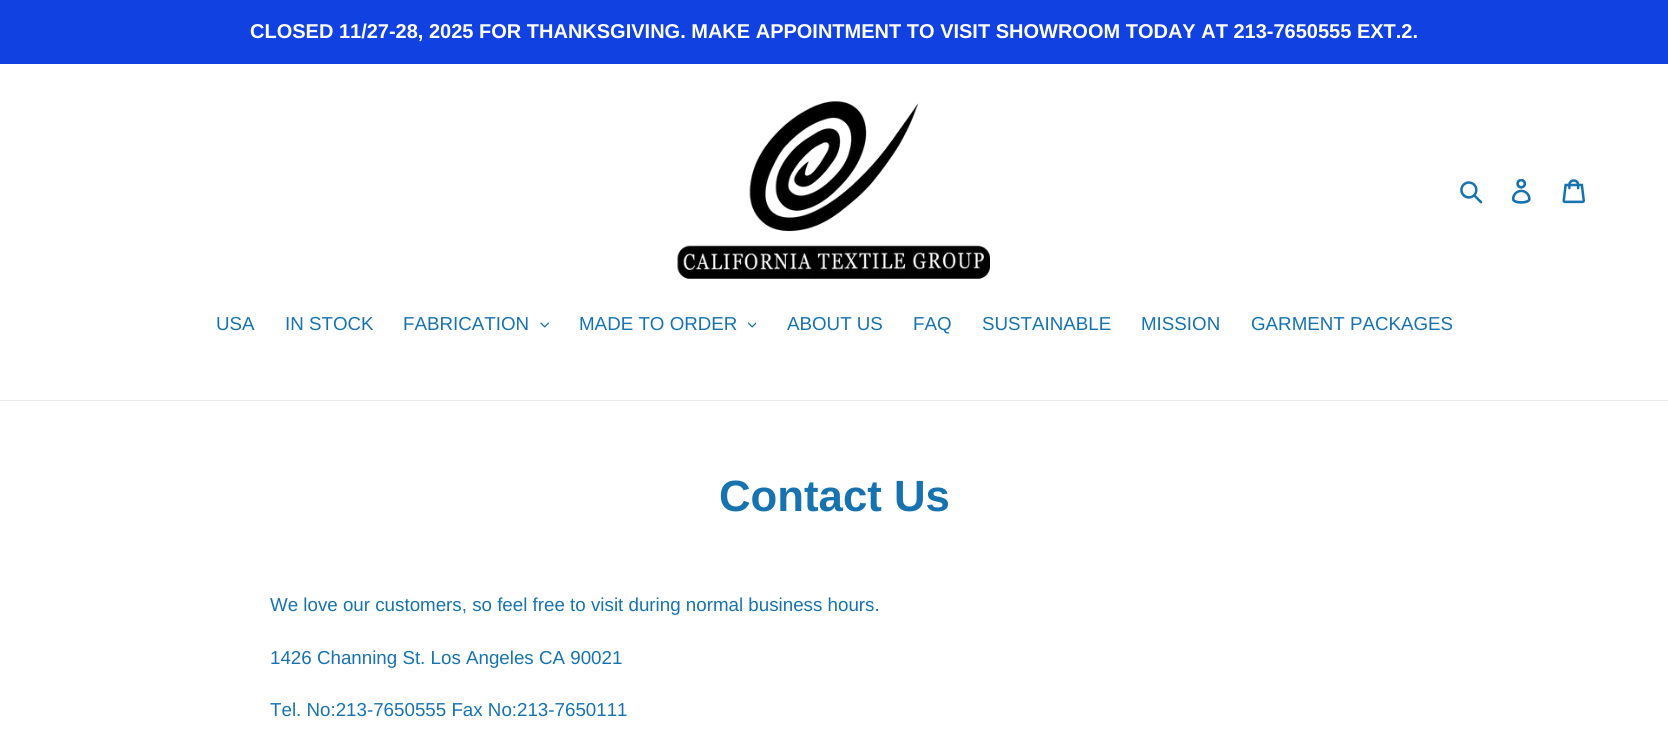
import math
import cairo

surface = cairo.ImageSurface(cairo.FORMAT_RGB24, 1668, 738)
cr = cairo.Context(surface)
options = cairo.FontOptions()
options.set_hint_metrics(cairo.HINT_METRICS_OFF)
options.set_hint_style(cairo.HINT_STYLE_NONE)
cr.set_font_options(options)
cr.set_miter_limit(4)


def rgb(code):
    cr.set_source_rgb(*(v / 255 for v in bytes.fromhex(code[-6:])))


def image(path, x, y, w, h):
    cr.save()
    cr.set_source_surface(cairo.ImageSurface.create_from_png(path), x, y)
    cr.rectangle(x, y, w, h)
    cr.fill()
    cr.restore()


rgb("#ffffff")
cr.paint()
rgb("#1142e1")
cr.rectangle(0, 0, 1668, 64)
cr.fill()
image("img/1.png", 677, 101, 313, 178)
image("img/2.png", 1460, 181, 23, 23)
image("img/3.png", 1511, 179, 20, 25)
image("img/4.png", 1562, 179, 23, 25)
rgb("#ebebeb")
cr.rectangle(0, 400, 1668, 1)
cr.fill()
image("img/5.png", 540, 322, 9, 6)
image("img/6.png", 748, 322, 8, 6)
cr.select_font_face("Liberation Sans", cairo.FONT_SLANT_NORMAL, cairo.FONT_WEIGHT_BOLD)
cr.set_font_size(20)
rgb("#ffffff")
cr.move_to(250, 38)
cr.show_text("CLOSED 11/27-28, 2025 FOR THANKSGIVING. MAKE APPOINTMENT TO VISIT SHOWROOM TODAY AT 213-7650555 EXT.2.")
cr.select_font_face("Liberation Sans")
cr.set_font_size(18.75)
rgb("#1773b0")
for x, y, s in [
    (216, 330, "USA"),
    (285, 330, "IN STOCK"),
    (403, 330, "FABRICATION"),
    (579, 330, "MADE TO ORDER"),
    (787, 330, "ABOUT US"),
    (913, 330, "FAQ"),
    (982, 330, "SUSTAINABLE"),
    (1141, 330, "MISSION"),
    (1251, 330, "GARMENT PACKAGES"),
]:
    cr.move_to(x, y)
    cr.show_text(s)
cr.select_font_face("Liberation Sans", cairo.FONT_SLANT_NORMAL, cairo.FONT_WEIGHT_BOLD)
cr.set_font_size(43.75)
cr.move_to(719, 511)
cr.show_text("Contact Us")
cr.select_font_face("Liberation Sans")
cr.set_font_size(18.75)
for x, y, s in [
    (270, 611, "We love our customers, so feel free to visit during normal business hours."),
    (270, 664, "1426 Channing St. Los Angeles CA 90021"),
    (270, 716, "Tel. No:213-7650555 Fax No:213-7650111"),
]:
    cr.move_to(x, y)
    cr.show_text(s)
surface.write_to_png("page.png")
